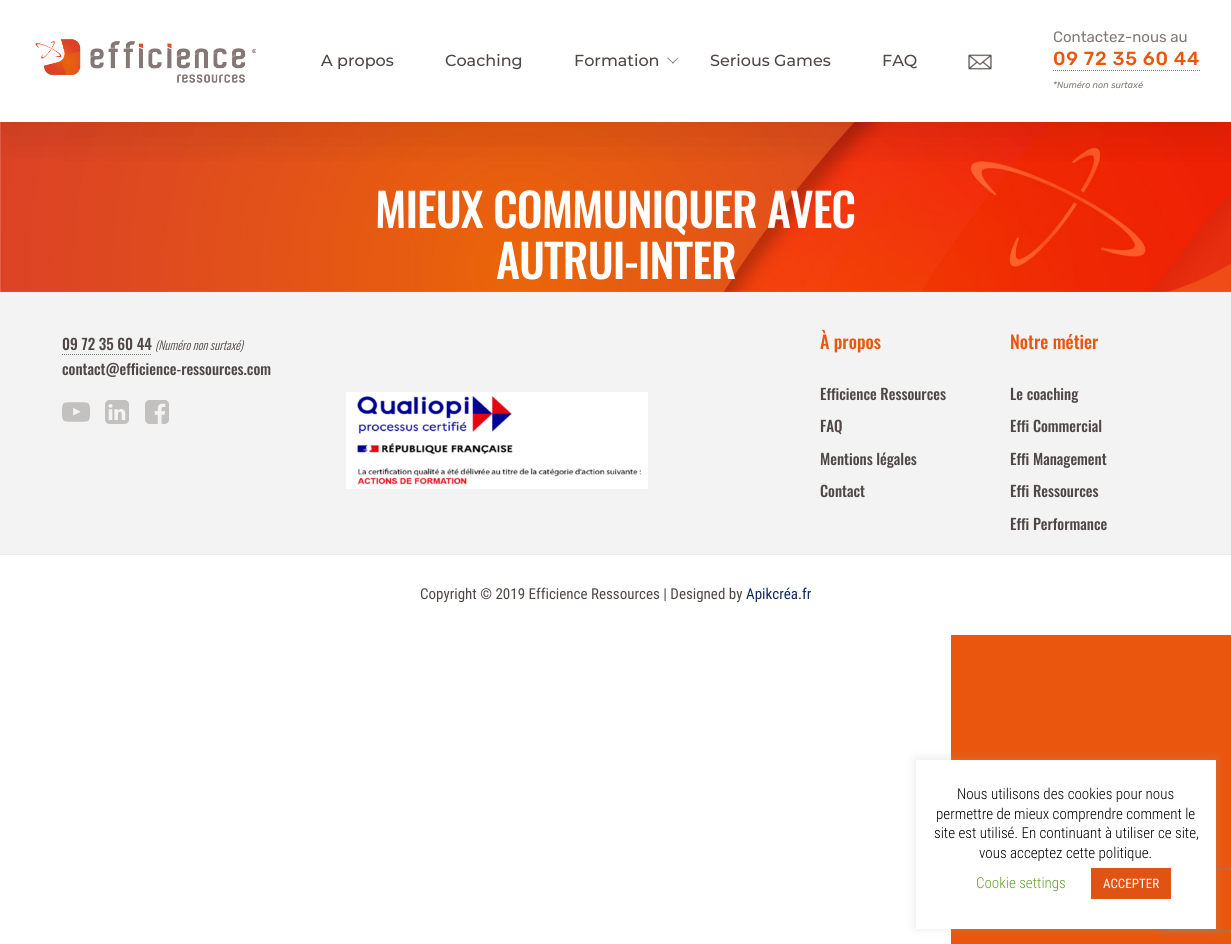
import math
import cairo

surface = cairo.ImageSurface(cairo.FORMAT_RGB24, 1231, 944)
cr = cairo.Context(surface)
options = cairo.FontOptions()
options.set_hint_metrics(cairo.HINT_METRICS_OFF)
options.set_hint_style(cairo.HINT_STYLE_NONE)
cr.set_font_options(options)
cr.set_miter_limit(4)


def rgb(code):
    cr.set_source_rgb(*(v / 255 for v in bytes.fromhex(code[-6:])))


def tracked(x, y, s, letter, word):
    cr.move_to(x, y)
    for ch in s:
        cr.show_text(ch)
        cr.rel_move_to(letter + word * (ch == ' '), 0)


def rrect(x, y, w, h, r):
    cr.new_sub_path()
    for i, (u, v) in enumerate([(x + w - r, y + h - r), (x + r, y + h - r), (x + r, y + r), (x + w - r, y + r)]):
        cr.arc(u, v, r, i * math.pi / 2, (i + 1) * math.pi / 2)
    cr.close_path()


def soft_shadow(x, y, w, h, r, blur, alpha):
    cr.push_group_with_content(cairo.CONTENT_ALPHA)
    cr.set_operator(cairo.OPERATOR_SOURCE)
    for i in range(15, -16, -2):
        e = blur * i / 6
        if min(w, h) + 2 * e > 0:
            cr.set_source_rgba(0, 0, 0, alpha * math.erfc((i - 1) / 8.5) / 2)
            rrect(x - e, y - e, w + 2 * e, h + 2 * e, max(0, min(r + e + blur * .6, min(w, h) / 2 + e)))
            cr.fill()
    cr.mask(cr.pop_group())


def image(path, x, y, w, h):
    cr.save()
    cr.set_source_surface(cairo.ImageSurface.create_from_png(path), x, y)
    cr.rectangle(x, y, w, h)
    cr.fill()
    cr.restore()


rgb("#ffffff")
cr.paint()
image("img/3.png", 0, 122, 1231, 170)
cr.save()
cr.rectangle(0, 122, 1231, 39)
cr.clip()
rgb("#000000")
soft_shadow(0, 10, 1231, 122, 0, 30, 0.12)
cr.restore()
image("img/1.png", 35, 39, 221, 44)
rgb("#847e7d")
cr.new_path()
cr.move_to(668, 57.5)
cr.line_to(673.5, 63)
cr.line_to(673, 63.5)
cr.line_to(667, 58)
cr.close_path()
cr.fill()
cr.set_source_rgba(0.31, 0.278, 0.271, 0.7)
cr.new_path()
cr.move_to(672, 63)
cr.line_to(678, 57.5)
cr.line_to(678.5, 58)
cr.line_to(673, 63.5)
cr.close_path()
cr.fill()
image("img/2.png", 968, 54, 24, 16)
cr.new_path()
cr.move_to(1053, 70.5)
cr.line_to(1200, 70.5)
rgb("#808080")
cr.set_line_width(1)
cr.set_dash([1, 1])
cr.stroke()
rgb("#f3f3f3")
cr.rectangle(0, 292, 1231, 262)
cr.fill()
cr.new_path()
cr.move_to(62, 354.5)
cr.line_to(151, 354.5)
rgb("#7a7a7a")
cr.stroke()
image("img/4.png", 62, 402, 28, 20)
image("img/5.png", 105, 400, 24, 24)
image("img/6.png", 145, 400, 24, 24)
image("img/7.png", 346, 392, 302, 97)
rgb("#ebebeb")
cr.rectangle(0, 554, 1231, 1)
cr.fill()
rgb("#ea560d")
cr.rectangle(951, 635, 280, 309)
cr.fill()
rgb("#acabab")
soft_shadow(916, 759, 300, 169, 0, 5, 0.3)
cr.save()
cr.set_fill_rule(cairo.FILL_RULE_EVEN_ODD)
cr.new_path()
cr.move_to(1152, 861)
cr.line_to(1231, 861)
cr.line_to(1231, 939)
cr.line_to(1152, 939)
cr.close_path()
cr.move_to(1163, 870)
cr.line_to(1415, 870)
cr.curve_to(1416, 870, 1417, 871, 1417, 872)
cr.line_to(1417, 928)
cr.curve_to(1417, 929, 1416, 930, 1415, 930)
cr.line_to(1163, 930)
cr.curve_to(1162, 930, 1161, 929, 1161, 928)
cr.line_to(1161, 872)
cr.curve_to(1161, 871, 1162, 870, 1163, 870)
cr.close_path()
cr.clip()
rgb("#808080")
soft_shadow(1161, 870, 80, 60, 2, 2.5, 1)
cr.restore()
rgb("#ffffff")
cr.rectangle(916, 760, 300, 169)
cr.fill()
rgb("#e15315")
cr.rectangle(1091, 868, 80, 31)
cr.fill()
cr.select_font_face("Montserrat Medium")
cr.set_font_size(16)
rgb("#4f4745")
for x, y, s in [
    (321, 66, "A propos"),
    (445, 66, "Coaching"),
    (574, 66, "Formation"),
    (710, 66, "Serious Games"),
    (882, 66, "FAQ"),
]:
    cr.move_to(x, y)
    cr.show_text(s)
cr.select_font_face("Rubik")
cr.set_font_size(15)
rgb("#847876")
cr.move_to(1053, 42)
cr.show_text("Contactez-nous au")
cr.select_font_face("Rubik Medium")
cr.set_font_size(19)
rgb("#ea560d")
tracked(1053, 65, "09 72 35 60 44", 0.75, 0)
cr.select_font_face("Rubik", cairo.FONT_SLANT_ITALIC)
cr.set_font_size(9)
rgb("#847876")
cr.move_to(1053, 88)
cr.show_text("*Numéro non surtaxé")
cr.select_font_face("Oswald Medium")
cr.set_font_size(46)
rgb("#ffffff")
tracked(375, 228, "MIEUX COMMUNIQUER AVEC", -1, 0)
tracked(496, 279, "AUTRUI-INTER", -1, 0)
cr.set_font_size(15)
rgb("#4f4745")
cr.move_to(62, 350)
cr.show_text("09 72 35 60 44")
cr.select_font_face("Oswald Light", cairo.FONT_SLANT_ITALIC)
cr.set_font_size(12)
cr.move_to(155, 350)
cr.show_text("(Numéro non surtaxé)")
cr.select_font_face("Oswald Medium")
cr.set_font_size(15)
cr.move_to(62, 375)
cr.show_text("contact@efficience-ressources.com")
cr.set_font_size(18)
rgb("#ea560d")
cr.move_to(820, 349)
cr.show_text("À propos")
cr.set_font_size(15)
rgb("#4f4745")
for x, y, s in [
    (820, 400, "Efficience Ressources"),
    (820, 432, "FAQ"),
    (820, 465, "Mentions légales"),
    (820, 497, "Contact"),
]:
    cr.move_to(x, y)
    cr.show_text(s)
cr.set_font_size(18)
rgb("#ea560d")
cr.move_to(1010, 349)
cr.show_text("Notre métier")
cr.set_font_size(15)
rgb("#4f4745")
for x, y, s in [
    (1010, 400, "Le coaching"),
    (1010, 432, "Effi Commercial"),
    (1010, 465, "Effi Management"),
    (1010, 497, "Effi Ressources"),
    (1010, 530, "Effi Performance"),
]:
    cr.move_to(x, y)
    cr.show_text(s)
cr.select_font_face("Roboto Condensed")
cr.move_to(420, 599)
cr.show_text("Copyright © 2019 Efficience Ressources | Designed by")
rgb("#0e2b5c")
cr.move_to(746, 599)
cr.show_text("Apikcréa.fr")
cr.select_font_face("Roboto Condensed Light")
rgb("#000000")
for x, y, s in [
    (957, 799, "Nous utilisons des cookies pour nous"),
    (936, 819, "permettre de mieux comprendre comment le"),
    (934, 838, "site est utilisé. En continuant à utiliser ce site,"),
    (979, 858, "vous acceptez cette politique."),
]:
    cr.move_to(x, y)
    cr.show_text(s)
rgb("#62a329")
cr.move_to(976, 888)
cr.show_text("Cookie settings")
cr.select_font_face("Roboto Condensed")
cr.set_font_size(13)
rgb("#ffffff")
cr.move_to(1103, 888)
cr.show_text("ACCEPTER")
surface.write_to_png("page.png")
